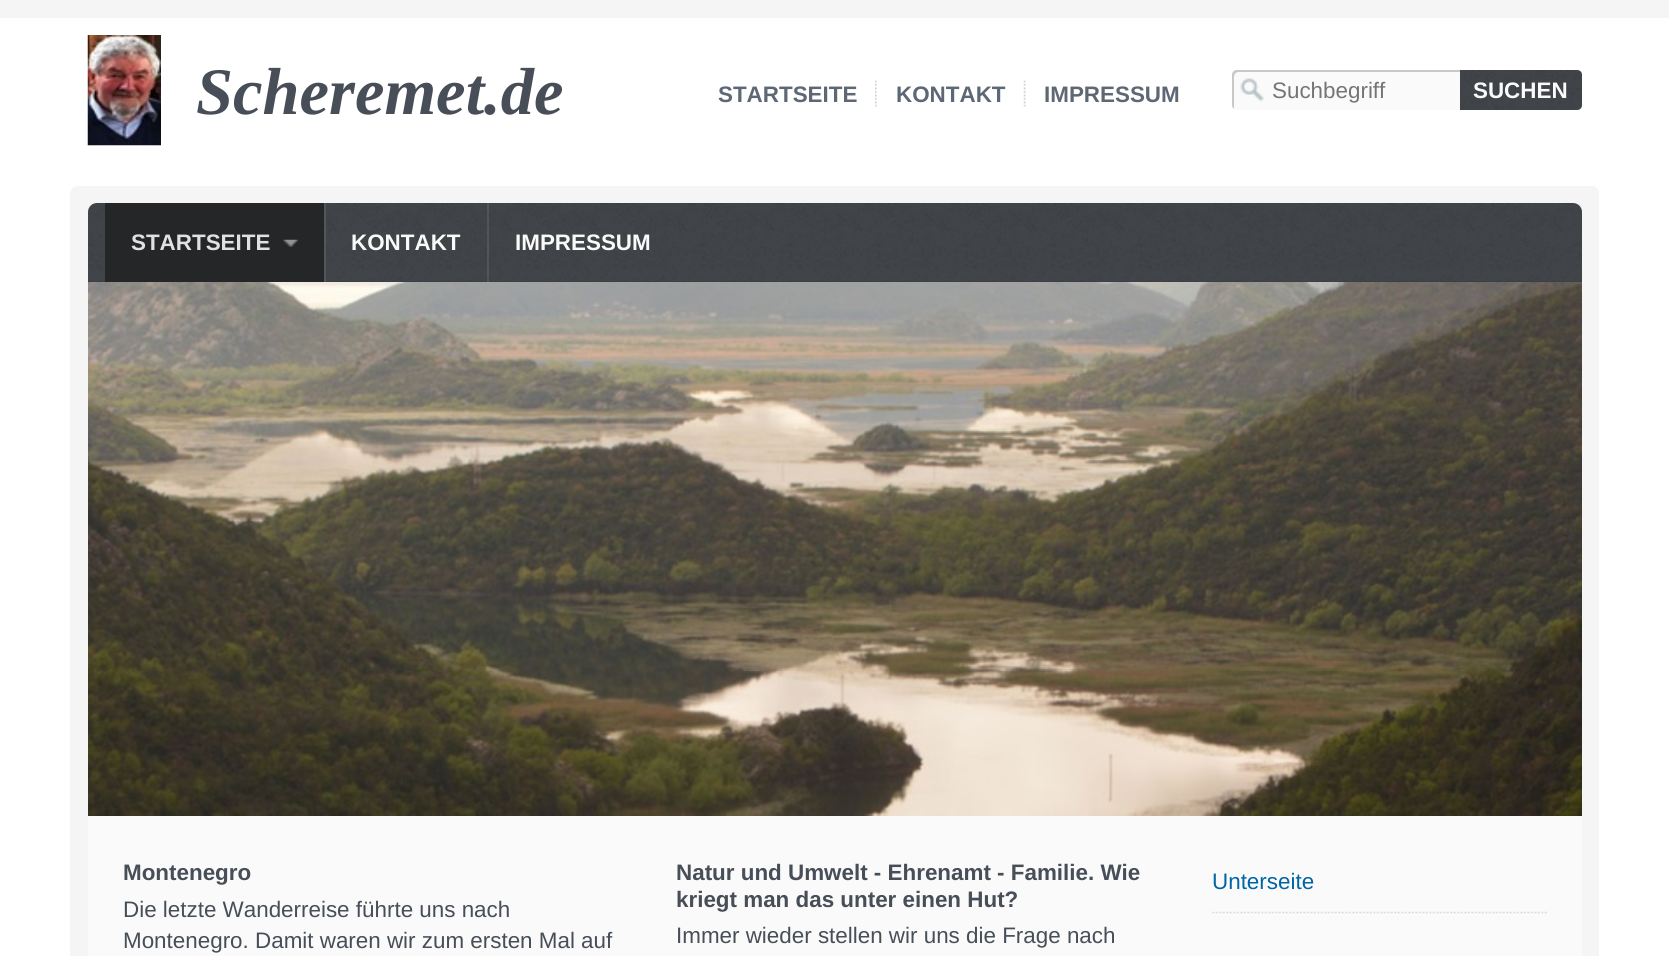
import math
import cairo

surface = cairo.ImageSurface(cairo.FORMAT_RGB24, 1669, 956)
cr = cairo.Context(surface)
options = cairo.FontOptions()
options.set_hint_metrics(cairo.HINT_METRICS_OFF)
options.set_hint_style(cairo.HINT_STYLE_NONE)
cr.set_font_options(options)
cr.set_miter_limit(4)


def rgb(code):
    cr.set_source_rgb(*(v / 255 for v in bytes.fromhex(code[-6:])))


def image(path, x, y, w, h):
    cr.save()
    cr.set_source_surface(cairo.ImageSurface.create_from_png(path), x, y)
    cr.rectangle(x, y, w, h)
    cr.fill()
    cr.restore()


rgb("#ffffff")
cr.paint()
rgb("#f5f5f5")
cr.rectangle(0, 0, 1669, 18)
cr.fill()
image("img/1.png", 87, 35, 74, 111)
image("img/2.png", 875, 80, 2, 27)
image("img/3.png", 1023, 80, 3, 27)
rgb("#fafafa")
cr.new_path()
cr.move_to(1237, 70)
cr.line_to(1460, 70)
cr.line_to(1460, 110)
cr.line_to(1237, 110)
cr.curve_to(1234, 110, 1232, 108, 1232, 105)
cr.line_to(1232, 75)
cr.curve_to(1232, 72, 1234, 70, 1237, 70)
cr.close_path()
cr.fill()
image("img/4.png", 1240, 78, 24, 24)
rgb("#c8c8c8")
cr.new_path()
cr.move_to(1239, 72)
cr.line_to(1460, 72)
cr.line_to(1460, 70)
cr.line_to(1237, 70)
cr.curve_to(1234, 70, 1232, 72, 1232, 75)
cr.line_to(1232, 105)
cr.curve_to(1232, 107, 1233, 108, 1234, 109)
cr.line_to(1234, 82)
cr.curve_to(1234, 78, 1233, 72, 1239, 72)
cr.close_path()
cr.fill()
rgb("#3c3f43")
cr.new_path()
cr.move_to(1460, 70)
cr.line_to(1577, 70)
cr.curve_to(1580, 70, 1582, 72, 1582, 75)
cr.line_to(1582, 105)
cr.curve_to(1582, 108, 1580, 110, 1577, 110)
cr.line_to(1460, 110)
cr.close_path()
cr.fill()
image("img/5.png", 1460, 70, 122, 40)
image("img/6.png", 70, 186, 1529, 770)
cr.new_path()
cr.move_to(97, 203)
cr.line_to(1573, 203)
cr.curve_to(1578, 203, 1582, 207, 1582, 212)
cr.line_to(1582, 282)
cr.line_to(88, 282)
cr.line_to(88, 212)
cr.curve_to(88, 207, 92, 203, 97, 203)
cr.close_path()
cr.fill()
image("img/7.png", 88, 203, 1494, 78)
rgb("#242628")
cr.rectangle(105, 203, 219, 79)
cr.fill()
image("img/8.png", 283, 239, 15, 8)
cr.set_source_rgba(1, 1, 1, 0.1)
cr.rectangle(324, 203, 2, 79)
cr.fill()
cr.rectangle(487, 203, 2, 79)
cr.fill()
image("img/9.png", 88, 282, 1494, 534)
rgb("#fafafa")
cr.rectangle(88, 816, 1494, 140)
cr.fill()
image("img/10.png", 1212, 911, 335, 4)
cr.select_font_face("Liberation Serif", cairo.FONT_SLANT_ITALIC, cairo.FONT_WEIGHT_BOLD)
cr.set_font_size(66.5)
rgb("#474e58")
cr.move_to(196, 114)
cr.show_text("Scheremet.de")
cr.select_font_face("Liberation Sans", cairo.FONT_SLANT_NORMAL, cairo.FONT_WEIGHT_BOLD)
cr.set_font_size(22.4)
rgb("#5e6774")
for x, y, s in [
    (718, 102, "STARTSEITE"),
    (896, 102, "KONTAKT"),
    (1044, 102, "IMPRESSUM"),
]:
    cr.move_to(x, y)
    cr.show_text(s)
cr.select_font_face("Liberation Sans")
rgb("#757575")
cr.move_to(1272, 98)
cr.show_text("Suchbegriff")
cr.select_font_face("Liberation Sans", cairo.FONT_SLANT_NORMAL, cairo.FONT_WEIGHT_BOLD)
rgb("#fafafa")
cr.move_to(1473, 98)
cr.show_text("SUCHEN")
rgb("#e1e1e1")
cr.move_to(131, 250)
cr.show_text("STARTSEITE")
rgb("#fafafa")
cr.move_to(351, 250)
cr.show_text("KONTAKT")
cr.move_to(515, 250)
cr.show_text("IMPRESSUM")
rgb("#474e58")
cr.move_to(123, 880)
cr.show_text("Montenegro")
cr.select_font_face("Liberation Sans")
cr.move_to(123, 917)
cr.show_text("Die letzte Wanderreise führte uns nach")
cr.move_to(123, 948)
cr.show_text("Montenegro. Damit waren wir zum ersten Mal auf")
cr.select_font_face("Liberation Sans", cairo.FONT_SLANT_NORMAL, cairo.FONT_WEIGHT_BOLD)
cr.move_to(676, 880)
cr.show_text("Natur und Umwelt - Ehrenamt - Familie. Wie")
cr.move_to(676, 907)
cr.show_text("kriegt man das unter einen Hut?")
cr.select_font_face("Liberation Sans")
cr.move_to(676, 943)
cr.show_text("Immer wieder stellen wir uns die Frage nach")
rgb("#0065a5")
cr.move_to(1212, 889)
cr.show_text("Unterseite")
surface.write_to_png("page.png")
